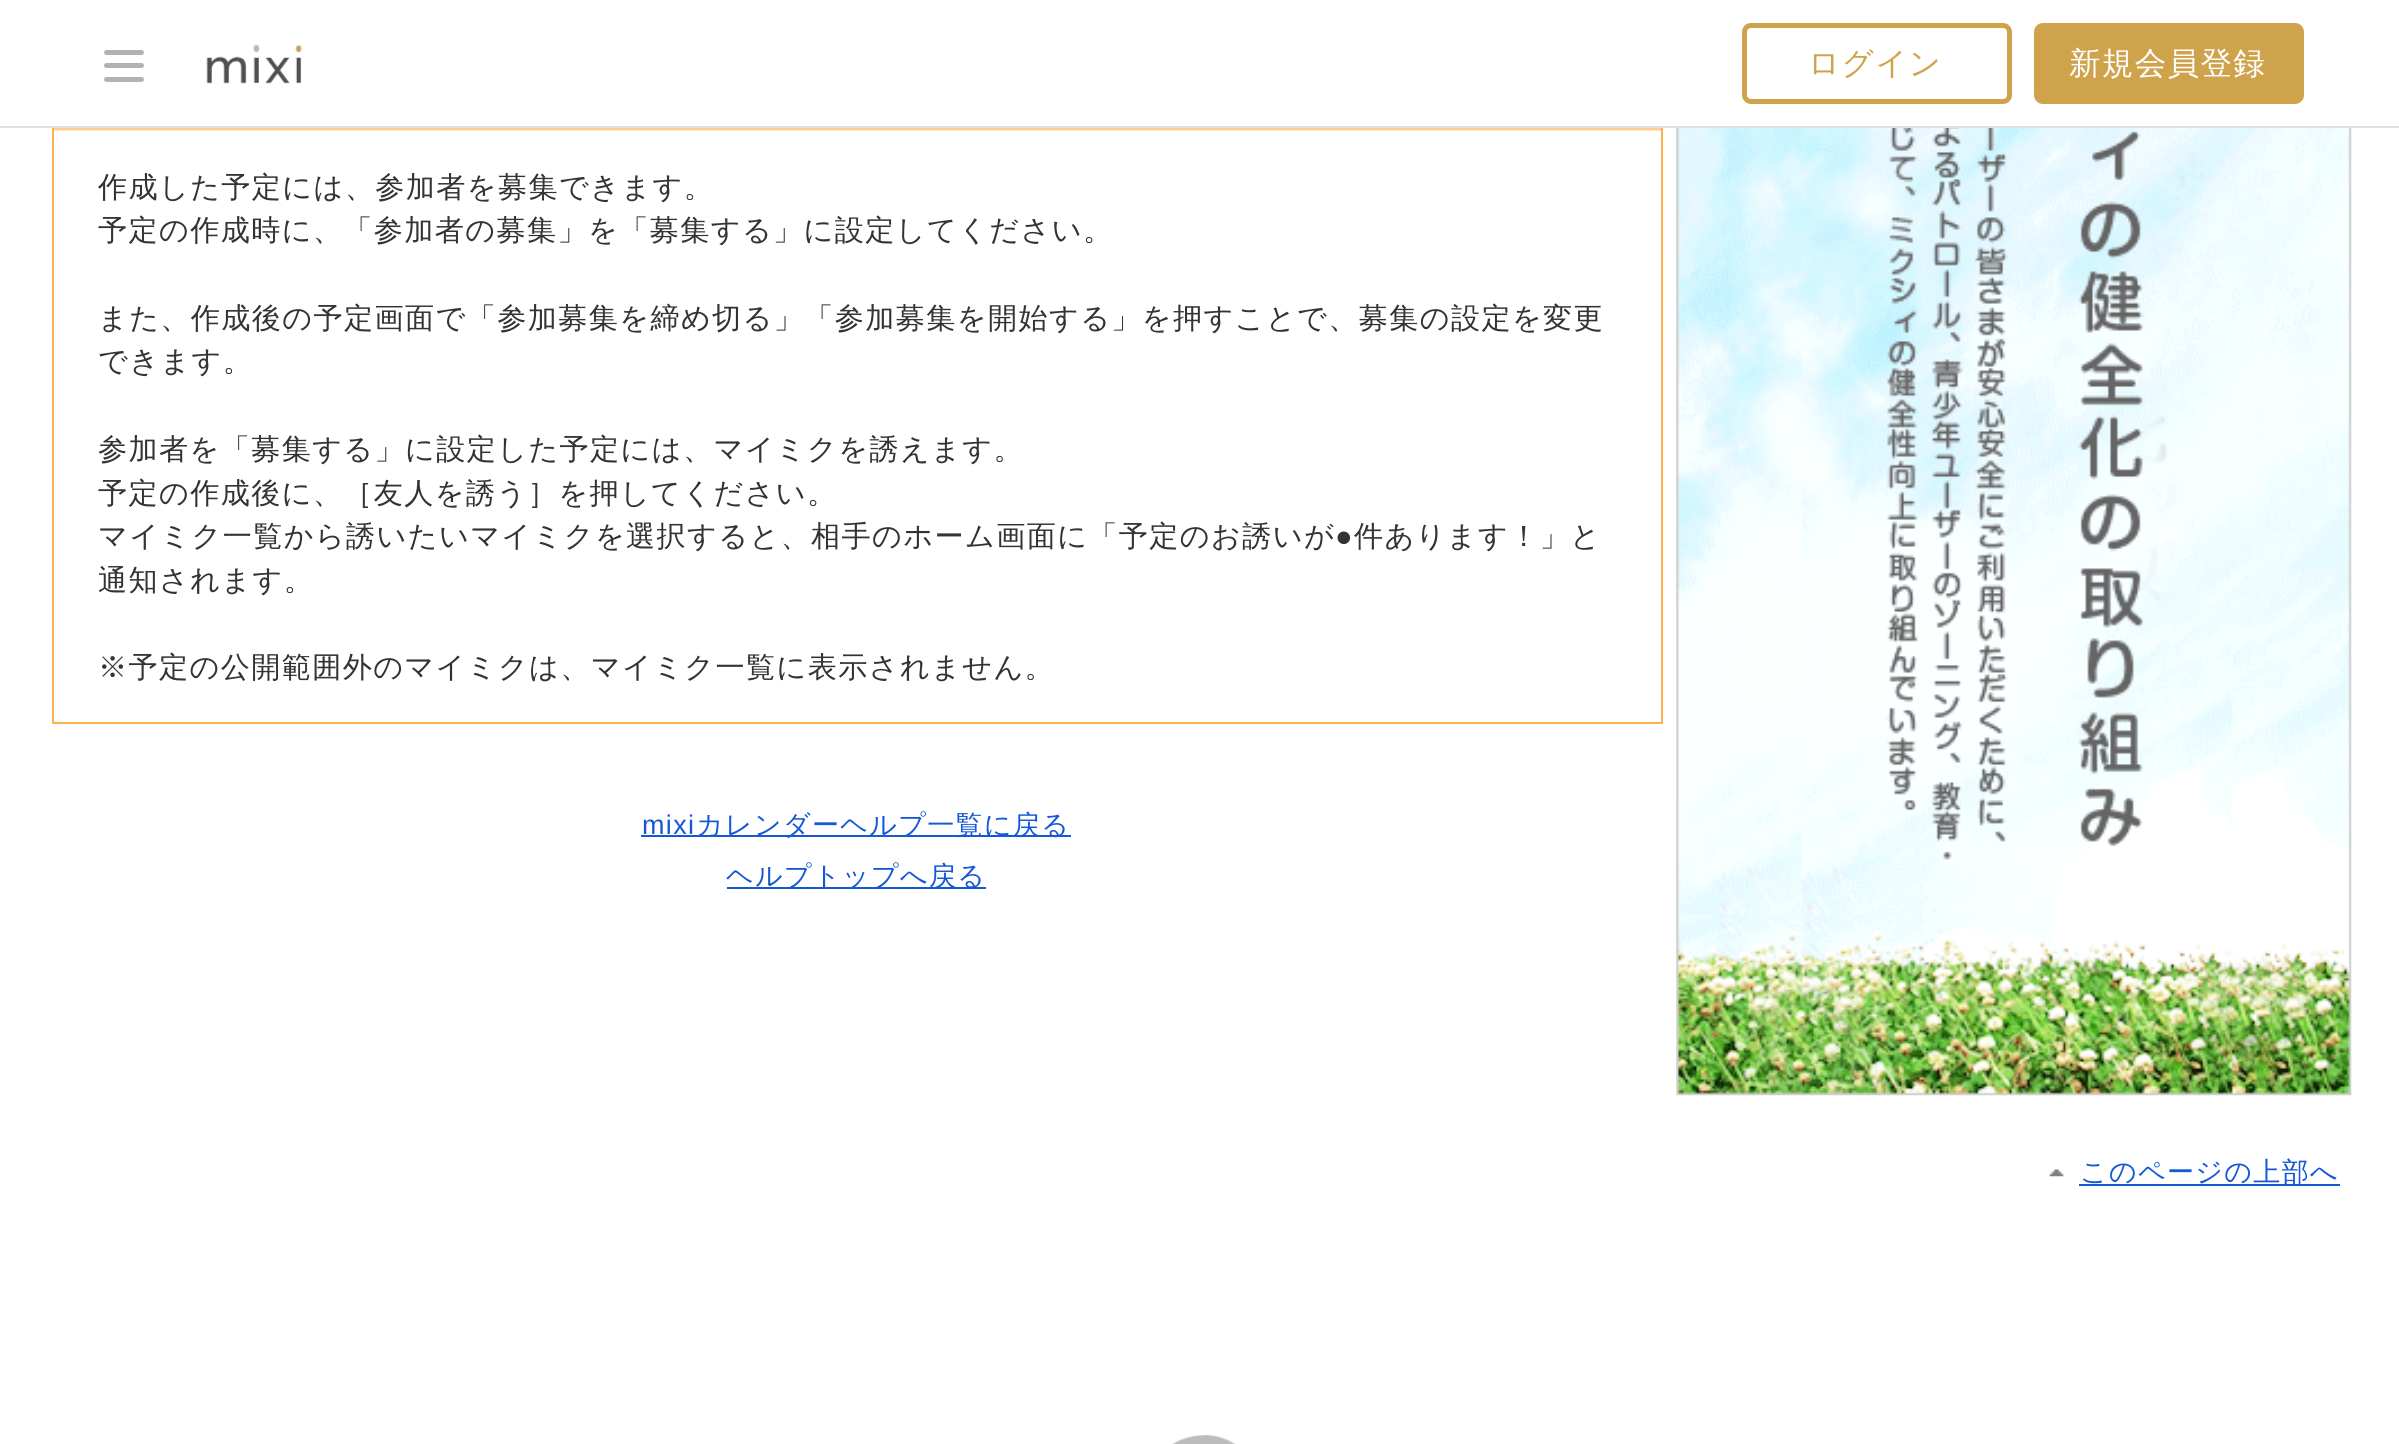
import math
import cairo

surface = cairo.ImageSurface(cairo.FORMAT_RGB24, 2399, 1444)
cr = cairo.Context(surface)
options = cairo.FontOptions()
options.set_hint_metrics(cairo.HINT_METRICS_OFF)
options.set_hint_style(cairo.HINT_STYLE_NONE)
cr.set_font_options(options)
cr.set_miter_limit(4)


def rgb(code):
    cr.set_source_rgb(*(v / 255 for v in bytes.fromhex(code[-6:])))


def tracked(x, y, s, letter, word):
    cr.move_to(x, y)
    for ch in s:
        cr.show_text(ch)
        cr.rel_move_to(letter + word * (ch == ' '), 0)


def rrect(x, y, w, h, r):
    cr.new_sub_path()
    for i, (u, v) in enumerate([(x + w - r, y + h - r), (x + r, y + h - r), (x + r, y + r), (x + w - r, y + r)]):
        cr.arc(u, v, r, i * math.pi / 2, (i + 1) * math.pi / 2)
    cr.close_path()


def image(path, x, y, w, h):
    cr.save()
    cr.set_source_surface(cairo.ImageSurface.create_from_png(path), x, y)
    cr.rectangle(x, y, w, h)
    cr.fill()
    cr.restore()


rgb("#ffffff")
cr.paint()
rgb("#e1e1e1")
cr.rectangle(0, 126, 2399, 2)
cr.fill()
rgb("#b2b2b2")
rrect(104, 50, 40, 5, 2.5)
cr.fill()
rrect(104, 63, 40, 5, 2.5)
cr.fill()
rrect(104, 77, 40, 5, 2.5)
cr.fill()
image("img/1.png", 206, 44, 96, 40)
rrect(1744.5, 25.5, 265, 76, 6.5)
rgb("#cfa34c")
cr.set_line_width(5)
cr.stroke()
rrect(2036.5, 25.5, 265, 76, 6.5)
cr.fill_preserve()
cr.stroke()
for x, y, w, h, color in [
    (52, 722, 1611, 2, "#fbb14e"),
    (1661, 128, 2, 594, "#fbb14e"),
    (52, 128, 2, 594, "#fbb14e"),
    (54, 130, 1607, 1, "#fee7c6"),
    (54, 128, 1607, 2, "#ffcd8f"),
    (641, 835, 430, 2, "#1558d6"),
    (727, 887, 259, 2, "#1558d6"),
]:
    rgb(color)
    cr.rectangle(x, y, w, h)
    cr.fill()
image("img/2.png", 1676, 128, 676, 968)
image("img/3.png", 2049, 1169, 15, 8)
cr.rectangle(2079, 1184, 261, 2)
cr.fill()
image("img/4.png", 1172, 1435, 64, 9)
cr.select_font_face("WenQuanYi Zen Hei Medium")
cr.set_font_size(31.5)
rgb("#cfa34c")
tracked(1808, 74, "ログイン", 1.35, 0)
rgb("#ffffff")
tracked(2069, 74, "新規会員登録", 1.35, 0)
cr.set_font_size(29.15)
rgb("#333333")
for x, y, s in [
    (98, 197, "作成した予定には、参加者を募集できます。"),
    (98, 240, "予定の作成時に、「参加者の募集」を「募集する」に設定してください。"),
    (98, 328, "また、作成後の予定画面で「参加募集を締め切る」「参加募集を開始する」を押すことで、募集の設定を変更"),
    (98, 371, "できます。"),
    (98, 459, "参加者を「募集する」に設定した予定には、マイミクを誘えます。"),
    (98, 503, "予定の作成後に、［友人を誘う］を押してください。"),
    (98, 546, "マイミク一覧から誘いたいマイミクを選択すると、相手のホーム画面に「予定のお誘いが"),
]:
    tracked(x, y, s, 1.35, 0)
cr.select_font_face("Liberation Sans")
tracked(1335, 546, "●", 1.35, 0)
cr.select_font_face("WenQuanYi Zen Hei Medium")
for x, y, s in [
    (1354, 546, "件あります！」と"),
    (98, 590, "通知されます。"),
    (98, 677, "※予定の公開範囲外のマイミクは、マイミク一覧に表示されません。"),
]:
    tracked(x, y, s, 1.35, 0)
cr.select_font_face("Liberation Sans")
cr.set_font_size(27)
rgb("#1558d6")
tracked(642, 834, "mixi", 1.35, 0)
cr.select_font_face("WenQuanYi Zen Hei Medium")
for x, y, s in [
    (696, 834, "カレンダーヘルプ一覧に戻る"),
    (726, 885, "ヘルプトップへ戻る"),
    (2080, 1181, "このページの上部へ"),
]:
    tracked(x, y, s, 1.35, 0)
surface.write_to_png("page.png")
